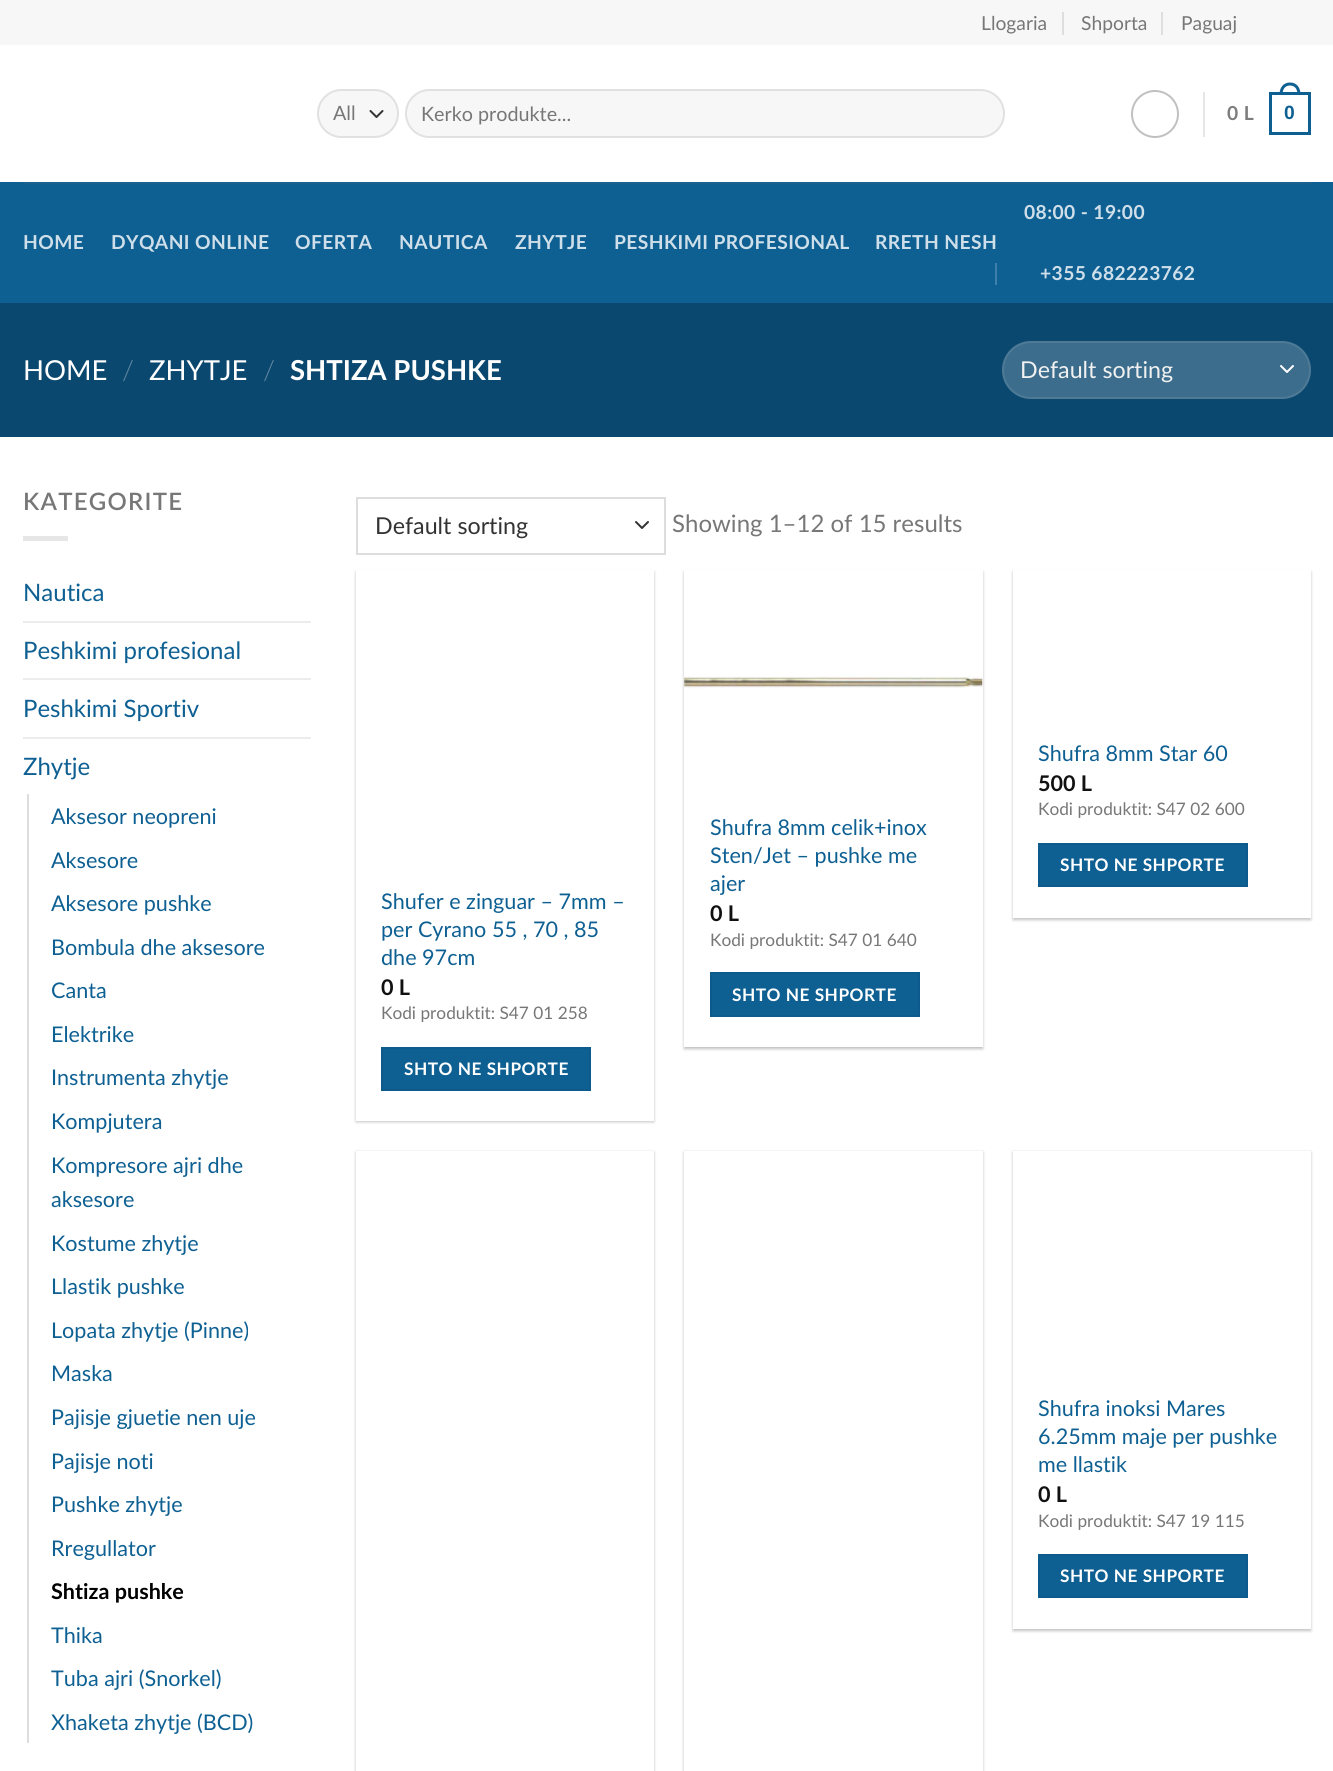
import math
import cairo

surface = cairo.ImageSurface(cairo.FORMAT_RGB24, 1333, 1771)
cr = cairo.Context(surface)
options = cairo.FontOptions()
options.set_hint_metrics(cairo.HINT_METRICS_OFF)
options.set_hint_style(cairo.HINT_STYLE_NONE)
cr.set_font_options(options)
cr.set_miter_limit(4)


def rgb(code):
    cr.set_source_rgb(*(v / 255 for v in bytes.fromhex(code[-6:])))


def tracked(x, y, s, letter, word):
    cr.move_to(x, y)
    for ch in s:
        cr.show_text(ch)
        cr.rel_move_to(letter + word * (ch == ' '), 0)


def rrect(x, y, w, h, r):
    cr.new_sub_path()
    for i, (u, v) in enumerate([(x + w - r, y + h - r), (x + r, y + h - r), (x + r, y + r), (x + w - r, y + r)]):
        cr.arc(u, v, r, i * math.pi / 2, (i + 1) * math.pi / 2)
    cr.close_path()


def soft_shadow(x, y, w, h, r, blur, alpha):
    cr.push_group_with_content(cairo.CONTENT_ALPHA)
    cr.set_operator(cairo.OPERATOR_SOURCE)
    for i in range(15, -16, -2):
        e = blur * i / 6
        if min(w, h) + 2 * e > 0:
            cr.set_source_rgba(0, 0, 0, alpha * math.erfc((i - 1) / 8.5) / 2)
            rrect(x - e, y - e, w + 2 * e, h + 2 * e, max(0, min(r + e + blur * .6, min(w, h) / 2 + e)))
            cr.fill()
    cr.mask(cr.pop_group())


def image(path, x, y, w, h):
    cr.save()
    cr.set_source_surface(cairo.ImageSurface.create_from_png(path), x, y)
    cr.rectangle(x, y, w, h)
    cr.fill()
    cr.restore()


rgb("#ffffff")
cr.paint()
for x, y, w, h, color in [
    (0, 0, 1333, 45, "#f7f7f7"),
    (1062, 12, 2, 23, "#dedede"),
    (1161, 12, 2, 23, "#dedede"),
]:
    rgb(color)
    cr.rectangle(x, y, w, h)
    cr.fill()
rgb("#f7f7f7")
rrect(317, 89, 82, 49, 24.5)
cr.fill()
cr.new_path()
cr.move_to(370.5, 111)
cr.line_to(376.5, 117)
cr.line_to(382.5, 111)
rgb("#333333")
cr.set_line_cap(cairo.LINE_CAP_ROUND)
cr.set_line_join(cairo.LINE_JOIN_ROUND)
cr.stroke()
rrect(318, 90, 80, 47, 23.5)
cr.set_source_rgba(0, 0, 0, 0.09)
cr.set_line_cap(cairo.LINE_CAP_BUTT)
cr.set_line_join(cairo.LINE_JOIN_MITER)
cr.stroke()
rgb("#f7f7f7")
rrect(405, 89, 600, 49, 24.5)
cr.fill()
rrect(406, 90, 598, 47, 23.5)
cr.set_source_rgba(0, 0, 0, 0.09)
cr.stroke()
cr.arc(1155, 114, 23, 0, 2 * math.pi)
rgb("#c0c0c0")
cr.stroke()
rgb("#e6e6e6")
cr.rectangle(1203, 92, 2, 45)
cr.fill()
cr.rectangle(1270.5, 93.5, 39, 40)
rgb("#0e6093")
cr.set_line_width(3)
cr.stroke()
cr.set_fill_rule(cairo.FILL_RULE_EVEN_ODD)
cr.new_path()
cr.move_to(1290, 82.5)
cr.curve_to(1297, 82.5, 1300.5, 88, 1300.5, 94.5)
cr.line_to(1279.5, 94.5)
cr.curve_to(1279.5, 88, 1283, 82.5, 1290, 82.5)
cr.close_path()
cr.move_to(1290, 85.5)
cr.curve_to(1295.5, 85.5, 1297.5, 90, 1297.5, 94.5)
cr.line_to(1282.5, 94.5)
cr.curve_to(1282.5, 90, 1284.5, 85.5, 1290, 85.5)
cr.close_path()
cr.fill()
for x, y, w, h, color in [
    (0, 182, 1333, 121, "#0e6093"),
    (23, 182, 1288, 2, "#196290"),
    (995, 263, 2, 22, "#3e80a9"),
    (0, 303, 1333, 134, "#0b486f"),
]:
    rgb(color)
    cr.rectangle(x, y, w, h)
    cr.fill()
rgb("#3c6d8c")
rrect(1002, 341, 309, 58, 29)
cr.fill()
cr.new_path()
cr.move_to(1281, 366)
cr.line_to(1287, 372)
cr.line_to(1293, 366)
rgb("#ffffff")
cr.set_line_width(2)
cr.set_line_cap(cairo.LINE_CAP_ROUND)
cr.set_line_join(cairo.LINE_JOIN_ROUND)
cr.stroke()
rrect(1003, 342, 307, 56, 28)
cr.set_source_rgba(1, 1, 1, 0.09)
cr.set_line_cap(cairo.LINE_CAP_BUTT)
cr.set_line_join(cairo.LINE_JOIN_MITER)
cr.stroke()
for x, y, w, h, color in [
    (23, 536, 45, 5, "#e6e6e6"),
    (23, 621, 288, 2, "#ececec"),
    (23, 678, 288, 2, "#ececec"),
    (23, 737, 288, 2, "#ececec"),
    (27, 794, 2, 949, "#dddddd"),
]:
    rgb(color)
    cr.rectangle(x, y, w, h)
    cr.fill()
cr.new_path()
cr.move_to(636, 522)
cr.line_to(642, 528)
cr.line_to(648, 522)
rgb("#333333")
cr.set_line_cap(cairo.LINE_CAP_ROUND)
cr.set_line_join(cairo.LINE_JOIN_ROUND)
cr.stroke()
cr.rectangle(357, 498, 308, 56)
rgb("#dddddd")
cr.set_line_cap(cairo.LINE_CAP_BUTT)
cr.set_line_join(cairo.LINE_JOIN_MITER)
cr.stroke()
rgb("#000000")
soft_shadow(356, 572, 298, 550, 0, 1.5, 0.24)
rgb("#ffffff")
cr.rectangle(356, 570, 298, 551)
cr.fill()
rgb("#0e6093")
cr.rectangle(382, 1048, 208, 42)
cr.fill_preserve()
rgb("#0d5b8c")
cr.stroke()
rgb("#000000")
soft_shadow(684, 572, 299, 477, 0, 1.5, 0.24)
soft_shadow(687, 575, 293, 471, 0, 2, 0.12)
rgb("#ffffff")
cr.rectangle(684, 570, 299, 477)
cr.fill()
image("img/1.png", 684, 676, 299, 13)
rgb("#0e6093")
cr.rectangle(711, 973, 208, 43)
cr.fill_preserve()
rgb("#0d5b8c")
cr.stroke()
cr.save()
cr.new_path()
cr.move_to(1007, 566)
cr.line_to(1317, 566)
cr.line_to(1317, 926)
cr.line_to(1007, 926)
cr.close_path()
cr.move_to(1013, 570)
cr.line_to(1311, 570)
cr.line_to(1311, 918)
cr.line_to(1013, 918)
cr.close_path()
cr.clip()
rgb("#000000")
soft_shadow(1013, 572, 298, 348, 0, 1.5, 0.24)
cr.restore()
rgb("#0e6093")
cr.rectangle(1039, 844, 208, 42)
cr.fill_preserve()
rgb("#0d5b8c")
cr.stroke()
cr.save()
cr.new_path()
cr.move_to(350, 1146)
cr.line_to(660, 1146)
cr.line_to(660, 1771)
cr.line_to(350, 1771)
cr.close_path()
cr.move_to(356, 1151)
cr.line_to(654, 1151)
cr.line_to(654, 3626)
cr.line_to(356, 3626)
cr.close_path()
cr.clip()
rgb("#000000")
soft_shadow(356, 1152, 298, 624, 0, 1.5, 0.24)
cr.restore()
rgb("#000000")
soft_shadow(684, 1152, 299, 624, 0, 1.5, 0.24)
rgb("#ffffff")
cr.rectangle(684, 1151, 299, 620)
cr.fill()
cr.save()
cr.new_path()
cr.move_to(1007, 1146)
cr.line_to(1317, 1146)
cr.line_to(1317, 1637)
cr.line_to(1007, 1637)
cr.close_path()
cr.move_to(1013, 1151)
cr.line_to(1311, 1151)
cr.line_to(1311, 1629)
cr.line_to(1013, 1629)
cr.close_path()
cr.clip()
rgb("#000000")
soft_shadow(1013, 1152, 298, 479, 0, 1.5, 0.24)
cr.restore()
rgb("#0e6093")
cr.rectangle(1039, 1555, 208, 42)
cr.fill_preserve()
rgb("#0d5b8c")
cr.stroke()
cr.select_font_face("Lato")
cr.set_font_size(19.25)
rgb("#777777")
for x, y, s in [
    (981, 30, "Llogaria"),
    (1081, 30, "Shporta"),
    (1181, 30, "Paguaj"),
]:
    cr.move_to(x, y)
    cr.show_text(s)
cr.set_font_size(19.75)
cr.move_to(333, 120)
cr.show_text("All")
cr.move_to(421, 121)
cr.show_text("Kerko produkte...")
cr.select_font_face("Lato", cairo.FONT_SLANT_NORMAL, cairo.FONT_WEIGHT_BOLD)
cr.set_font_size(19.25)
rgb("#7d7d7d")
tracked(1227, 120, "0 L", 0.4, 0)
cr.select_font_face("Liberation Sans", cairo.FONT_SLANT_NORMAL, cairo.FONT_WEIGHT_BOLD)
rgb("#0e6093")
tracked(1284, 119, "0", 0.4, 0)
cr.select_font_face("Lato", cairo.FONT_SLANT_NORMAL, cairo.FONT_WEIGHT_BOLD)
rgb("#cfdfe9")
for x, y, s in [
    (23, 249, "HOME"),
    (111, 249, "DYQANI ONLINE"),
    (295, 249, "OFERTA"),
    (399, 249, "NAUTICA"),
    (515, 249, "ZHYTJE"),
    (614, 249, "PESHKIMI PROFESIONAL"),
    (875, 249, "RRETH NESH"),
    (1024, 219, "08:00 - 19:00"),
    (1040, 280, "+355 682223762"),
]:
    tracked(x, y, s, 0.4, 0)
cr.select_font_face("Lato")
cr.set_font_size(27.5)
rgb("#ffffff")
cr.move_to(23, 380)
cr.show_text("HOME")
cr.select_font_face("Lato Light")
rgb("#6088a1")
cr.move_to(122, 380)
cr.show_text("/")
cr.select_font_face("Lato")
rgb("#ffffff")
cr.move_to(149, 380)
cr.show_text("ZHYTJE")
cr.select_font_face("Lato Light")
rgb("#6088a1")
cr.move_to(263, 380)
cr.show_text("/")
cr.select_font_face("Lato", cairo.FONT_SLANT_NORMAL, cairo.FONT_WEIGHT_BOLD)
rgb("#ffffff")
cr.move_to(290, 380)
cr.show_text("SHTIZA PUSHKE")
cr.select_font_face("Lato")
cr.set_font_size(23.25)
rgb("#f1f1f1")
cr.move_to(1020, 378)
cr.show_text("Default sorting")
cr.select_font_face("Lato SemiBold")
cr.set_font_size(24)
rgb("#777777")
tracked(23, 510, "KATEGORITE", 1.25, 0)
cr.select_font_face("Lato")
rgb("#0e6093")
for x, y, s in [
    (23, 601, "Nautica"),
    (23, 659, "Peshkimi profesional"),
    (23, 717, "Peshkimi Sportiv"),
    (23, 775, "Zhytje"),
]:
    cr.move_to(x, y)
    cr.show_text(s)
cr.set_font_size(21.6)
for x, y, s in [
    (51, 824, "Aksesor neopreni"),
    (51, 868, "Aksesore"),
    (51, 911, "Aksesore pushke"),
    (51, 955, "Bombula dhe aksesore"),
    (51, 998, "Canta"),
    (51, 1042, "Elektrike"),
    (51, 1085, "Instrumenta zhytje"),
    (51, 1129, "Kompjutera"),
    (51, 1173, "Kompresore ajri dhe"),
    (51, 1207, "aksesore"),
    (51, 1251, "Kostume zhytje"),
    (51, 1294, "Llastik pushke"),
    (51, 1338, "Lopata zhytje (Pinne)"),
    (51, 1381, "Maska"),
    (51, 1425, "Pajisje gjuetie nen uje"),
    (51, 1469, "Pajisje noti"),
    (51, 1512, "Pushke zhytje"),
    (51, 1556, "Rregullator"),
]:
    cr.move_to(x, y)
    cr.show_text(s)
cr.select_font_face("Lato", cairo.FONT_SLANT_NORMAL, cairo.FONT_WEIGHT_BOLD)
rgb("#000000")
cr.move_to(51, 1599)
cr.show_text("Shtiza pushke")
cr.select_font_face("Lato")
rgb("#0e6093")
for x, y, s in [
    (51, 1643, "Thika"),
    (51, 1686, "Tuba ajri (Snorkel)"),
    (51, 1730, "Xhaketa zhytje (BCD)"),
]:
    cr.move_to(x, y)
    cr.show_text(s)
cr.set_font_size(23.25)
rgb("#333333")
cr.move_to(375, 534)
cr.show_text("Default sorting")
cr.set_font_size(24)
rgb("#777777")
cr.move_to(672, 532)
cr.show_text("Showing 1–12 of 15 results")
cr.set_font_size(21.6)
rgb("#0e6093")
for x, y, s in [
    (381, 909, "Shufer e zinguar – 7mm –"),
    (381, 937, "per Cyrano 55 , 70 , 85"),
    (381, 965, "dhe 97cm"),
]:
    cr.move_to(x, y)
    cr.show_text(s)
cr.select_font_face("Lato", cairo.FONT_SLANT_NORMAL, cairo.FONT_WEIGHT_BOLD)
rgb("#111111")
cr.move_to(381, 995)
cr.show_text("0 L")
cr.select_font_face("Lato")
cr.set_font_size(17.25)
rgb("#777777")
cr.move_to(381, 1019)
cr.show_text("Kodi produktit: S47 01 258")
cr.select_font_face("Lato", cairo.FONT_SLANT_NORMAL, cairo.FONT_WEIGHT_BOLD)
rgb("#ffffff")
tracked(404, 1075, "SHTO NE SHPORTE", 0.5, 0)
cr.select_font_face("Lato")
cr.set_font_size(21.6)
rgb("#0e6093")
for x, y, s in [
    (710, 835, "Shufra 8mm celik+inox"),
    (710, 863, "Sten/Jet – pushke me"),
    (710, 891, "ajer"),
]:
    cr.move_to(x, y)
    cr.show_text(s)
cr.select_font_face("Lato", cairo.FONT_SLANT_NORMAL, cairo.FONT_WEIGHT_BOLD)
rgb("#111111")
cr.move_to(710, 921)
cr.show_text("0 L")
cr.select_font_face("Lato")
cr.set_font_size(17.25)
rgb("#777777")
cr.move_to(710, 946)
cr.show_text("Kodi produktit: S47 01 640")
cr.select_font_face("Lato", cairo.FONT_SLANT_NORMAL, cairo.FONT_WEIGHT_BOLD)
rgb("#ffffff")
tracked(732, 1001, "SHTO NE SHPORTE", 0.5, 0)
cr.select_font_face("Lato")
cr.set_font_size(21.6)
rgb("#0e6093")
cr.move_to(1038, 761)
cr.show_text("Shufra 8mm Star 60")
cr.select_font_face("Lato", cairo.FONT_SLANT_NORMAL, cairo.FONT_WEIGHT_BOLD)
rgb("#111111")
cr.move_to(1038, 791)
cr.show_text("500 L")
cr.select_font_face("Lato")
cr.set_font_size(17.25)
rgb("#777777")
cr.move_to(1038, 815)
cr.show_text("Kodi produktit: S47 02 600")
cr.select_font_face("Lato", cairo.FONT_SLANT_NORMAL, cairo.FONT_WEIGHT_BOLD)
rgb("#ffffff")
tracked(1060, 871, "SHTO NE SHPORTE", 0.5, 0)
cr.select_font_face("Lato")
cr.set_font_size(21.6)
rgb("#0e6093")
for x, y, s in [
    (1038, 1416, "Shufra inoksi Mares"),
    (1038, 1444, "6.25mm maje per pushke"),
    (1038, 1472, "me llastik"),
]:
    cr.move_to(x, y)
    cr.show_text(s)
cr.select_font_face("Lato", cairo.FONT_SLANT_NORMAL, cairo.FONT_WEIGHT_BOLD)
rgb("#111111")
cr.move_to(1038, 1502)
cr.show_text("0 L")
cr.select_font_face("Lato")
cr.set_font_size(17.25)
rgb("#777777")
cr.move_to(1038, 1527)
cr.show_text("Kodi produktit: S47 19 115")
cr.select_font_face("Lato", cairo.FONT_SLANT_NORMAL, cairo.FONT_WEIGHT_BOLD)
rgb("#ffffff")
tracked(1060, 1582, "SHTO NE SHPORTE", 0.5, 0)
surface.write_to_png("page.png")
